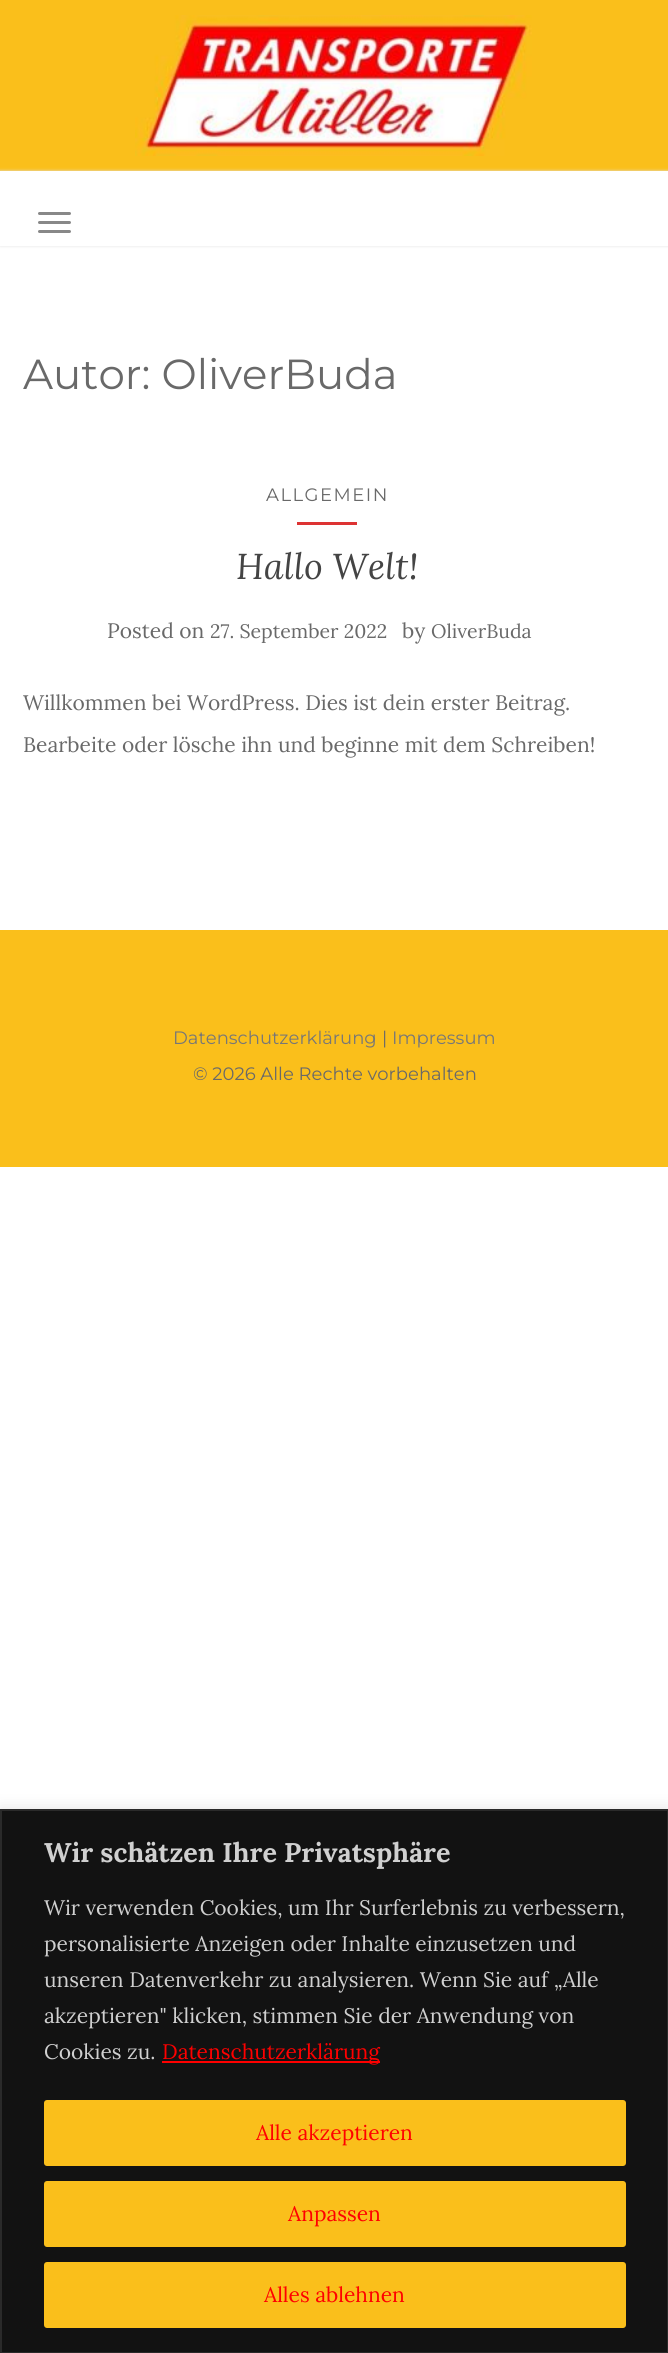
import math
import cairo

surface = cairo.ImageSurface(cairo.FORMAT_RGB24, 668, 2353)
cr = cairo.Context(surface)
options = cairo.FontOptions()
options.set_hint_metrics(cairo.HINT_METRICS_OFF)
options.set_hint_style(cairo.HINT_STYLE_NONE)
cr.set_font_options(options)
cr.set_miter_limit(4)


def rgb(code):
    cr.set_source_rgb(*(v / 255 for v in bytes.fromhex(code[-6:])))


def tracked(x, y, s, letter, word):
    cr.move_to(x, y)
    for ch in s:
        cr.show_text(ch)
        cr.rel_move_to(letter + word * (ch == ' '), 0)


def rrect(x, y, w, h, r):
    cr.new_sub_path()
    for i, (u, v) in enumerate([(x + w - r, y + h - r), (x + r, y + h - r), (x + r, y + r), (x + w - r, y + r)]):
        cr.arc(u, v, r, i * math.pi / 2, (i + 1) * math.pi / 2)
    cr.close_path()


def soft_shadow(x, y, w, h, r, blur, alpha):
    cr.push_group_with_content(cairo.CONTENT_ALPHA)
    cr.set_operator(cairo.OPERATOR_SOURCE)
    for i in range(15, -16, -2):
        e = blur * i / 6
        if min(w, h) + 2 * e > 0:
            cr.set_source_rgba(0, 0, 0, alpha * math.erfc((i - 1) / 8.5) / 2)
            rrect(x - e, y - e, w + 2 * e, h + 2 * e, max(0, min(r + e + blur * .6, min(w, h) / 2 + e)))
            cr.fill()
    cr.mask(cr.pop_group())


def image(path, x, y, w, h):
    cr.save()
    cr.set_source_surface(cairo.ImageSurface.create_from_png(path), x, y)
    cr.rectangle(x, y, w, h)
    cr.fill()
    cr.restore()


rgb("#ffffff")
cr.paint()
rgb("#fabf1b")
cr.rectangle(0, 0, 668, 171)
cr.fill()
image("img/1.png", 135, 15, 397, 141)
cr.save()
cr.set_fill_rule(cairo.FILL_RULE_EVEN_ODD)
cr.new_path()
cr.move_to(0, 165)
cr.line_to(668, 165)
cr.line_to(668, 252)
cr.line_to(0, 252)
cr.close_path()
cr.move_to(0, 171)
cr.line_to(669, 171)
cr.line_to(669, 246)
cr.line_to(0, 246)
cr.close_path()
cr.clip()
rgb("#e3e3e3")
soft_shadow(0, 171, 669, 75, 0, 1.5, 1)
cr.restore()
rgb("#888888")
rrect(38, 212, 33, 3, 1.5)
cr.fill()
rrect(38, 221, 33, 3, 1.5)
cr.fill()
rrect(38, 230, 33, 3, 1.5)
cr.fill()
rgb("#dd3333")
cr.rectangle(297, 522, 60, 3)
cr.fill()
rgb("#fabf1b")
cr.rectangle(0, 930, 668, 237)
cr.fill()
rgb("#acabab")
soft_shadow(0, 1808, 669, 544, 0, 7.5, 0.3)
rgb("#121212")
cr.rectangle(1, 1810, 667, 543)
cr.fill_preserve()
rgb("#2a2a2a")
cr.stroke()
rgb("#ff0000")
cr.rectangle(162, 2061, 218, 2)
cr.fill()
rgb("#fabf1b")
rrect(45.5, 2101.5, 579, 63, 1.5)
cr.fill_preserve()
cr.set_line_width(3)
cr.stroke()
rrect(45.5, 2182.5, 579, 63, 1.5)
cr.fill_preserve()
cr.stroke()
rrect(45.5, 2263.5, 579, 63, 1.5)
cr.fill_preserve()
cr.stroke()
cr.select_font_face("Montserrat Thin")
cr.set_font_size(42)
rgb("#696969")
cr.move_to(23, 389)
cr.show_text("Autor: OliverBuda")
cr.set_font_size(18)
tracked(266, 501, "ALLGEMEIN", 1.5, 0)
cr.select_font_face("Lora", cairo.FONT_SLANT_ITALIC)
cr.set_font_size(36)
rgb("#444444")
cr.move_to(236, 579)
cr.show_text("Hallo Welt!")
cr.select_font_face("Lora")
cr.set_font_size(21)
rgb("#696969")
cr.move_to(107, 638)
cr.show_text("Posted on")
cr.set_font_size(19.5)
cr.move_to(210, 638)
cr.show_text("27. September 2022")
cr.set_font_size(21)
cr.move_to(402, 638)
cr.show_text("by")
cr.set_font_size(19.5)
cr.move_to(431, 638)
cr.show_text("OliverBuda")
cr.set_font_size(21)
cr.move_to(23, 710)
cr.show_text("Willkommen bei WordPress. Dies ist dein erster Beitrag.")
cr.move_to(23, 752)
cr.show_text("Bearbeite oder lösche ihn und beginne mit dem Schreiben!")
cr.select_font_face("Montserrat Thin")
cr.set_font_size(18)
rgb("#777777")
cr.move_to(173, 1044)
cr.show_text("Datenschutzerklärung")
rgb("#696969")
cr.move_to(382, 1044)
cr.show_text("|")
rgb("#777777")
cr.move_to(392, 1044)
cr.show_text("Impressum")
rgb("#696969")
cr.move_to(193, 1080)
cr.show_text("© 2026 Alle Rechte vorbehalten")
cr.select_font_face("Lora", cairo.FONT_SLANT_NORMAL, cairo.FONT_WEIGHT_BOLD)
cr.set_font_size(27)
rgb("#d0d0d0")
cr.move_to(44, 1862)
cr.show_text("Wir schätzen Ihre Privatsphäre")
cr.select_font_face("Lora")
cr.set_font_size(21)
for x, y, s in [
    (44, 1915, "Wir verwenden Cookies, um Ihr Surferlebnis zu verbessern,"),
    (44, 1951, "personalisierte Anzeigen oder Inhalte einzusetzen und"),
    (44, 1987, "unseren Datenverkehr zu analysieren. Wenn Sie auf „Alle"),
    (44, 2023, "akzeptieren\" klicken, stimmen Sie der Anwendung von"),
    (44, 2059, "Cookies zu."),
]:
    cr.move_to(x, y)
    cr.show_text(s)
rgb("#ff0000")
for x, y, s in [
    (162, 2059, "Datenschutzerklärung"),
    (256, 2140, "Alle akzeptieren"),
    (288, 2221, "Anpassen"),
    (264, 2302, "Alles ablehnen"),
]:
    cr.move_to(x, y)
    cr.show_text(s)
surface.write_to_png("page.png")
